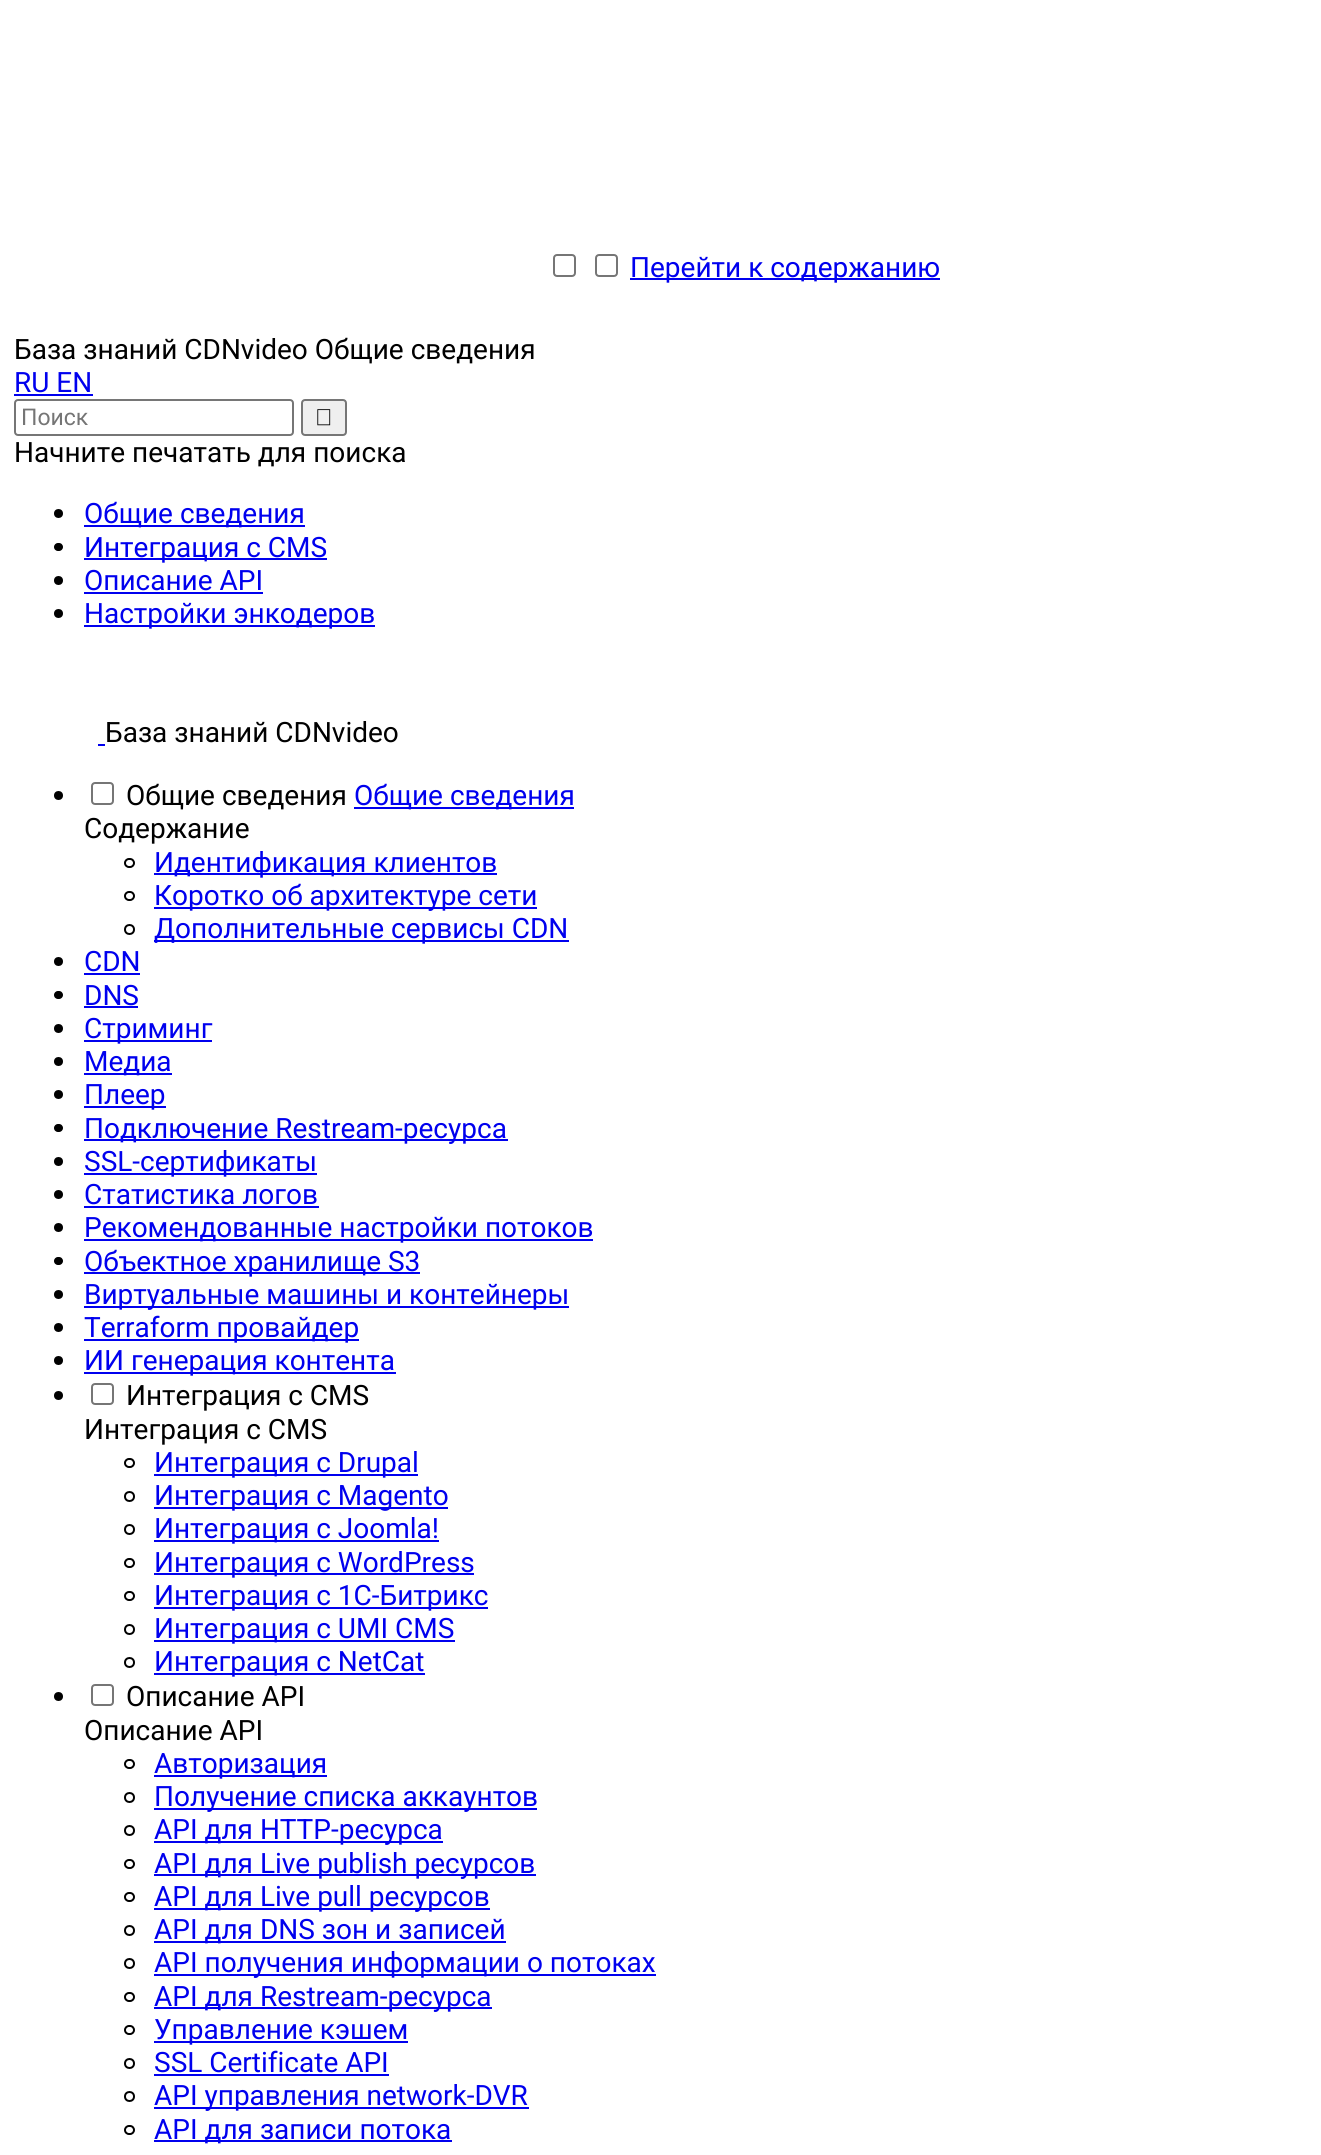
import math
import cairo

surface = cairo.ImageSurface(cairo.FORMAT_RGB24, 1321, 2155)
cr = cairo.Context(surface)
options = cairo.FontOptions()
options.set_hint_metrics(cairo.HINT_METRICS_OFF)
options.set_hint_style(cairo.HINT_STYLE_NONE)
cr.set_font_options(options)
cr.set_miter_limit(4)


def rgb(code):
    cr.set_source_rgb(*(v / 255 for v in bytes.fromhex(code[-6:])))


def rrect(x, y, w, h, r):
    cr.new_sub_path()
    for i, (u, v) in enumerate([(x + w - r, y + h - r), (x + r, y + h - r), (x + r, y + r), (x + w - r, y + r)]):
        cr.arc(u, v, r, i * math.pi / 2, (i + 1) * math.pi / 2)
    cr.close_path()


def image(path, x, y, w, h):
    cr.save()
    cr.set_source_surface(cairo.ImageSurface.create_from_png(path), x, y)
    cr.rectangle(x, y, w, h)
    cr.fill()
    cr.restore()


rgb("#ffffff")
cr.paint()
rrect(554, 255, 21, 21, 3)
rgb("#767676")
cr.stroke()
rrect(596, 255, 21, 21, 3)
cr.stroke()
rgb("#0000ee")
cr.rectangle(630, 278, 310, 2)
cr.fill()
cr.rectangle(14, 394, 79, 2)
cr.fill()
rrect(15, 400, 278, 35, 3)
rgb("#767676")
cr.stroke()
rgb("#efefef")
rrect(302, 400, 44, 35, 3)
cr.fill_preserve()
rgb("#767676")
cr.stroke()
image("img/1.png", 317, 409, 14, 17)
rgb("#000000")
cr.arc(58.5, 513.5, 4.5, 0, 2 * math.pi)
cr.fill()
rgb("#0000ee")
cr.rectangle(84, 525, 221, 2)
cr.fill()
rgb("#000000")
rrect(54, 543, 9, 8, 4)
cr.fill()
rgb("#0000ee")
cr.rectangle(84, 558, 243, 2)
cr.fill()
rgb("#000000")
cr.arc(58.5, 580.5, 4.5, 0, 2 * math.pi)
cr.fill()
rgb("#0000ee")
cr.rectangle(84, 592, 179, 2)
cr.fill()
rgb("#000000")
cr.arc(58.5, 613.5, 4.5, 0, 2 * math.pi)
cr.fill()
rgb("#0000ee")
cr.rectangle(84, 625, 291, 2)
cr.fill()
cr.rectangle(98, 744, 7, 2)
cr.fill()
rgb("#000000")
cr.arc(58.5, 795.5, 4.5, 0, 2 * math.pi)
cr.fill()
rrect(92, 783, 21, 21, 3)
rgb("#767676")
cr.stroke()
rgb("#0000ee")
cr.rectangle(354, 807, 220, 2)
cr.fill()
rrect(125, 859, 9, 8, 4)
rgb("#000000")
cr.stroke()
rgb("#0000ee")
cr.rectangle(154, 873, 343, 2)
cr.fill()
rrect(125, 892, 9, 8, 4)
rgb("#000000")
cr.stroke()
rgb("#0000ee")
cr.rectangle(154, 907, 383, 2)
cr.fill()
cr.arc(129.5, 929.5, 4.5, 0, 2 * math.pi)
rgb("#000000")
cr.stroke()
rgb("#0000ee")
cr.rectangle(154, 940, 415, 2)
cr.fill()
rgb("#000000")
cr.arc(58.5, 961.5, 4.5, 0, 2 * math.pi)
cr.fill()
rgb("#0000ee")
cr.rectangle(84, 973, 56, 2)
cr.fill()
rgb("#000000")
rrect(54, 991, 9, 8, 4)
cr.fill()
rgb("#0000ee")
cr.rectangle(84, 1006, 54, 2)
cr.fill()
rgb("#000000")
cr.arc(58.5, 1028.5, 4.5, 0, 2 * math.pi)
cr.fill()
rgb("#0000ee")
cr.rectangle(84, 1040, 128, 2)
cr.fill()
rgb("#000000")
cr.arc(58.5, 1061.5, 4.5, 0, 2 * math.pi)
cr.fill()
rgb("#0000ee")
cr.rectangle(84, 1073, 88, 2)
cr.fill()
rgb("#000000")
cr.arc(58.5, 1094.5, 4.5, 0, 2 * math.pi)
cr.fill()
rgb("#0000ee")
cr.rectangle(84, 1106, 82, 2)
cr.fill()
rgb("#000000")
rrect(54, 1124, 9, 8, 4)
cr.fill()
rgb("#0000ee")
cr.rectangle(84, 1139, 424, 2)
cr.fill()
rgb("#000000")
cr.arc(58.5, 1161.5, 4.5, 0, 2 * math.pi)
cr.fill()
rgb("#0000ee")
cr.rectangle(84, 1173, 233, 2)
cr.fill()
rgb("#000000")
cr.arc(58.5, 1194.5, 4.5, 0, 2 * math.pi)
cr.fill()
rgb("#0000ee")
cr.rectangle(84, 1206, 235, 2)
cr.fill()
rgb("#000000")
cr.arc(58.5, 1227.5, 4.5, 0, 2 * math.pi)
cr.fill()
rgb("#0000ee")
cr.rectangle(84, 1239, 509, 2)
cr.fill()
rgb("#000000")
rrect(54, 1257, 9, 8, 4)
cr.fill()
rgb("#0000ee")
cr.rectangle(84, 1272, 336, 2)
cr.fill()
rgb("#000000")
cr.arc(58.5, 1294.5, 4.5, 0, 2 * math.pi)
cr.fill()
rgb("#0000ee")
cr.rectangle(84, 1306, 485, 2)
cr.fill()
rgb("#000000")
cr.arc(58.5, 1327.5, 4.5, 0, 2 * math.pi)
cr.fill()
rgb("#0000ee")
cr.rectangle(84, 1339, 275, 2)
cr.fill()
rgb("#000000")
cr.arc(58.5, 1360.5, 4.5, 0, 2 * math.pi)
cr.fill()
rgb("#0000ee")
cr.rectangle(84, 1372, 312, 2)
cr.fill()
rgb("#000000")
cr.arc(58.5, 1395.5, 4.5, 0, 2 * math.pi)
cr.fill()
rrect(92, 1384, 21, 20, 3)
rgb("#767676")
cr.stroke()
rrect(125, 1459, 9, 8, 4)
rgb("#000000")
cr.stroke()
rgb("#0000ee")
cr.rectangle(154, 1474, 264, 2)
cr.fill()
cr.arc(129.5, 1496.5, 4.5, 0, 2 * math.pi)
rgb("#000000")
cr.stroke()
rgb("#0000ee")
cr.rectangle(154, 1507, 294, 2)
cr.fill()
cr.arc(129.5, 1529.5, 4.5, 0, 2 * math.pi)
rgb("#000000")
cr.stroke()
rgb("#0000ee")
cr.rectangle(154, 1540, 285, 2)
cr.fill()
rrect(125, 1559, 9, 8, 4)
rgb("#000000")
cr.stroke()
rgb("#0000ee")
cr.rectangle(154, 1573, 320, 2)
cr.fill()
rrect(125, 1592, 9, 8, 4)
rgb("#000000")
cr.stroke()
rgb("#0000ee")
cr.rectangle(154, 1607, 334, 2)
cr.fill()
cr.arc(129.5, 1629.5, 4.5, 0, 2 * math.pi)
rgb("#000000")
cr.stroke()
rgb("#0000ee")
cr.rectangle(154, 1640, 301, 2)
cr.fill()
cr.arc(129.5, 1662.5, 4.5, 0, 2 * math.pi)
rgb("#000000")
cr.stroke()
rgb("#0000ee")
cr.rectangle(154, 1673, 271, 2)
cr.fill()
rgb("#000000")
cr.arc(58.5, 1696.5, 4.5, 0, 2 * math.pi)
cr.fill()
rrect(92, 1685, 21, 20, 3)
rgb("#767676")
cr.stroke()
rrect(125, 1760, 9, 8, 4)
rgb("#000000")
cr.stroke()
rgb("#0000ee")
cr.rectangle(154, 1775, 173, 2)
cr.fill()
cr.arc(129.5, 1797.5, 4.5, 0, 2 * math.pi)
rgb("#000000")
cr.stroke()
rgb("#0000ee")
cr.rectangle(154, 1808, 383, 2)
cr.fill()
cr.arc(129.5, 1830.5, 4.5, 0, 2 * math.pi)
rgb("#000000")
cr.stroke()
rgb("#0000ee")
cr.rectangle(154, 1841, 289, 2)
cr.fill()
rrect(125, 1860, 9, 8, 4)
rgb("#000000")
cr.stroke()
rgb("#0000ee")
cr.rectangle(154, 1874, 382, 2)
cr.fill()
rrect(125, 1893, 9, 8, 4)
rgb("#000000")
cr.stroke()
rgb("#0000ee")
cr.rectangle(154, 1908, 336, 2)
cr.fill()
cr.arc(129.5, 1930.5, 4.5, 0, 2 * math.pi)
rgb("#000000")
cr.stroke()
rgb("#0000ee")
cr.rectangle(154, 1941, 352, 2)
cr.fill()
cr.arc(129.5, 1963.5, 4.5, 0, 2 * math.pi)
rgb("#000000")
cr.stroke()
rgb("#0000ee")
cr.rectangle(154, 1974, 502, 2)
cr.fill()
rrect(125, 1993, 9, 8, 4)
rgb("#000000")
cr.stroke()
rgb("#0000ee")
cr.rectangle(154, 2007, 338, 2)
cr.fill()
rrect(125, 2026, 9, 8, 4)
rgb("#000000")
cr.stroke()
rgb("#0000ee")
cr.rectangle(154, 2041, 254, 2)
cr.fill()
cr.arc(129.5, 2063.5, 4.5, 0, 2 * math.pi)
rgb("#000000")
cr.stroke()
rgb("#0000ee")
cr.rectangle(154, 2074, 235, 2)
cr.fill()
cr.arc(129.5, 2096.5, 4.5, 0, 2 * math.pi)
rgb("#000000")
cr.stroke()
rgb("#0000ee")
cr.rectangle(154, 2107, 375, 2)
cr.fill()
rrect(125, 2126, 9, 8, 4)
rgb("#000000")
cr.stroke()
rgb("#0000ee")
cr.rectangle(154, 2140, 298, 2)
cr.fill()
cr.select_font_face("Roboto")
cr.set_font_size(28)
cr.move_to(630, 277)
cr.show_text("Перейти к содержанию")
rgb("#000000")
cr.move_to(14, 359)
cr.show_text("База знаний CDNvideo Общие сведения")
rgb("#0000ee")
cr.move_to(14, 392)
cr.show_text("RU EN")
cr.set_font_size(23)
rgb("#757575")
cr.move_to(21, 425)
cr.show_text("Поиск")
cr.set_font_size(28)
rgb("#000000")
cr.move_to(14, 462)
cr.show_text("Начните печатать для поиска")
rgb("#0000ee")
for x, y, s in [
    (84, 523, "Общие сведения"),
    (84, 557, "Интеграция c CMS"),
    (84, 590, "Описание API"),
    (84, 623, "Настройки энкодеров"),
]:
    cr.move_to(x, y)
    cr.show_text(s)
rgb("#000000")
cr.move_to(105, 742)
cr.show_text("База знаний CDNvideo")
cr.move_to(126, 805)
cr.show_text("Общие сведения")
rgb("#0000ee")
cr.move_to(354, 805)
cr.show_text("Общие сведения")
rgb("#000000")
cr.move_to(84, 838)
cr.show_text("Содержание")
rgb("#0000ee")
for x, y, s in [
    (154, 872, "Идентификация клиентов"),
    (154, 905, "Коротко об архитектуре сети"),
    (154, 938, "Дополнительные сервисы CDN"),
    (84, 971, "CDN"),
    (84, 1005, "DNS"),
    (84, 1038, "Стриминг"),
    (84, 1071, "Медиа"),
    (84, 1104, "Плеер"),
    (84, 1138, "Подключение Restream-ресурса"),
    (84, 1171, "SSL-сертификаты"),
    (84, 1204, "Статистика логов"),
    (84, 1237, "Рекомендованные настройки потоков"),
    (84, 1271, "Объектное хранилище S3"),
    (84, 1304, "Виртуальные машины и контейнеры"),
    (84, 1337, "Terraform провайдер"),
    (84, 1370, "ИИ генерация контента"),
]:
    cr.move_to(x, y)
    cr.show_text(s)
rgb("#000000")
cr.move_to(126, 1405)
cr.show_text("Интеграция c CMS")
cr.move_to(84, 1439)
cr.show_text("Интеграция c CMS")
rgb("#0000ee")
for x, y, s in [
    (154, 1472, "Интеграция с Drupal"),
    (154, 1505, "Интеграция с Magento"),
    (154, 1538, "Интеграция с Joomla!"),
    (154, 1572, "Интеграция с WordPress"),
    (154, 1605, "Интеграция с 1С-Битрикс"),
    (154, 1638, "Интеграция с UMI CMS"),
    (154, 1671, "Интеграция с NetCat"),
]:
    cr.move_to(x, y)
    cr.show_text(s)
rgb("#000000")
cr.move_to(126, 1706)
cr.show_text("Описание API")
cr.move_to(84, 1740)
cr.show_text("Описание API")
rgb("#0000ee")
for x, y, s in [
    (154, 1773, "Авторизация"),
    (154, 1806, "Получение списка аккаунтов"),
    (154, 1839, "API для HTTP-ресурса"),
    (154, 1873, "API для Live publish ресурсов"),
    (154, 1906, "API для Live pull ресурсов"),
    (154, 1939, "API для DNS зон и записей"),
    (154, 1972, "API получения информации о потоках"),
    (154, 2006, "API для Restream-ресурса"),
    (154, 2039, "Управление кэшем"),
    (154, 2072, "SSL Certificate API"),
    (154, 2105, "API управления network-DVR"),
    (154, 2139, "API для записи потока"),
]:
    cr.move_to(x, y)
    cr.show_text(s)
surface.write_to_png("page.png")
